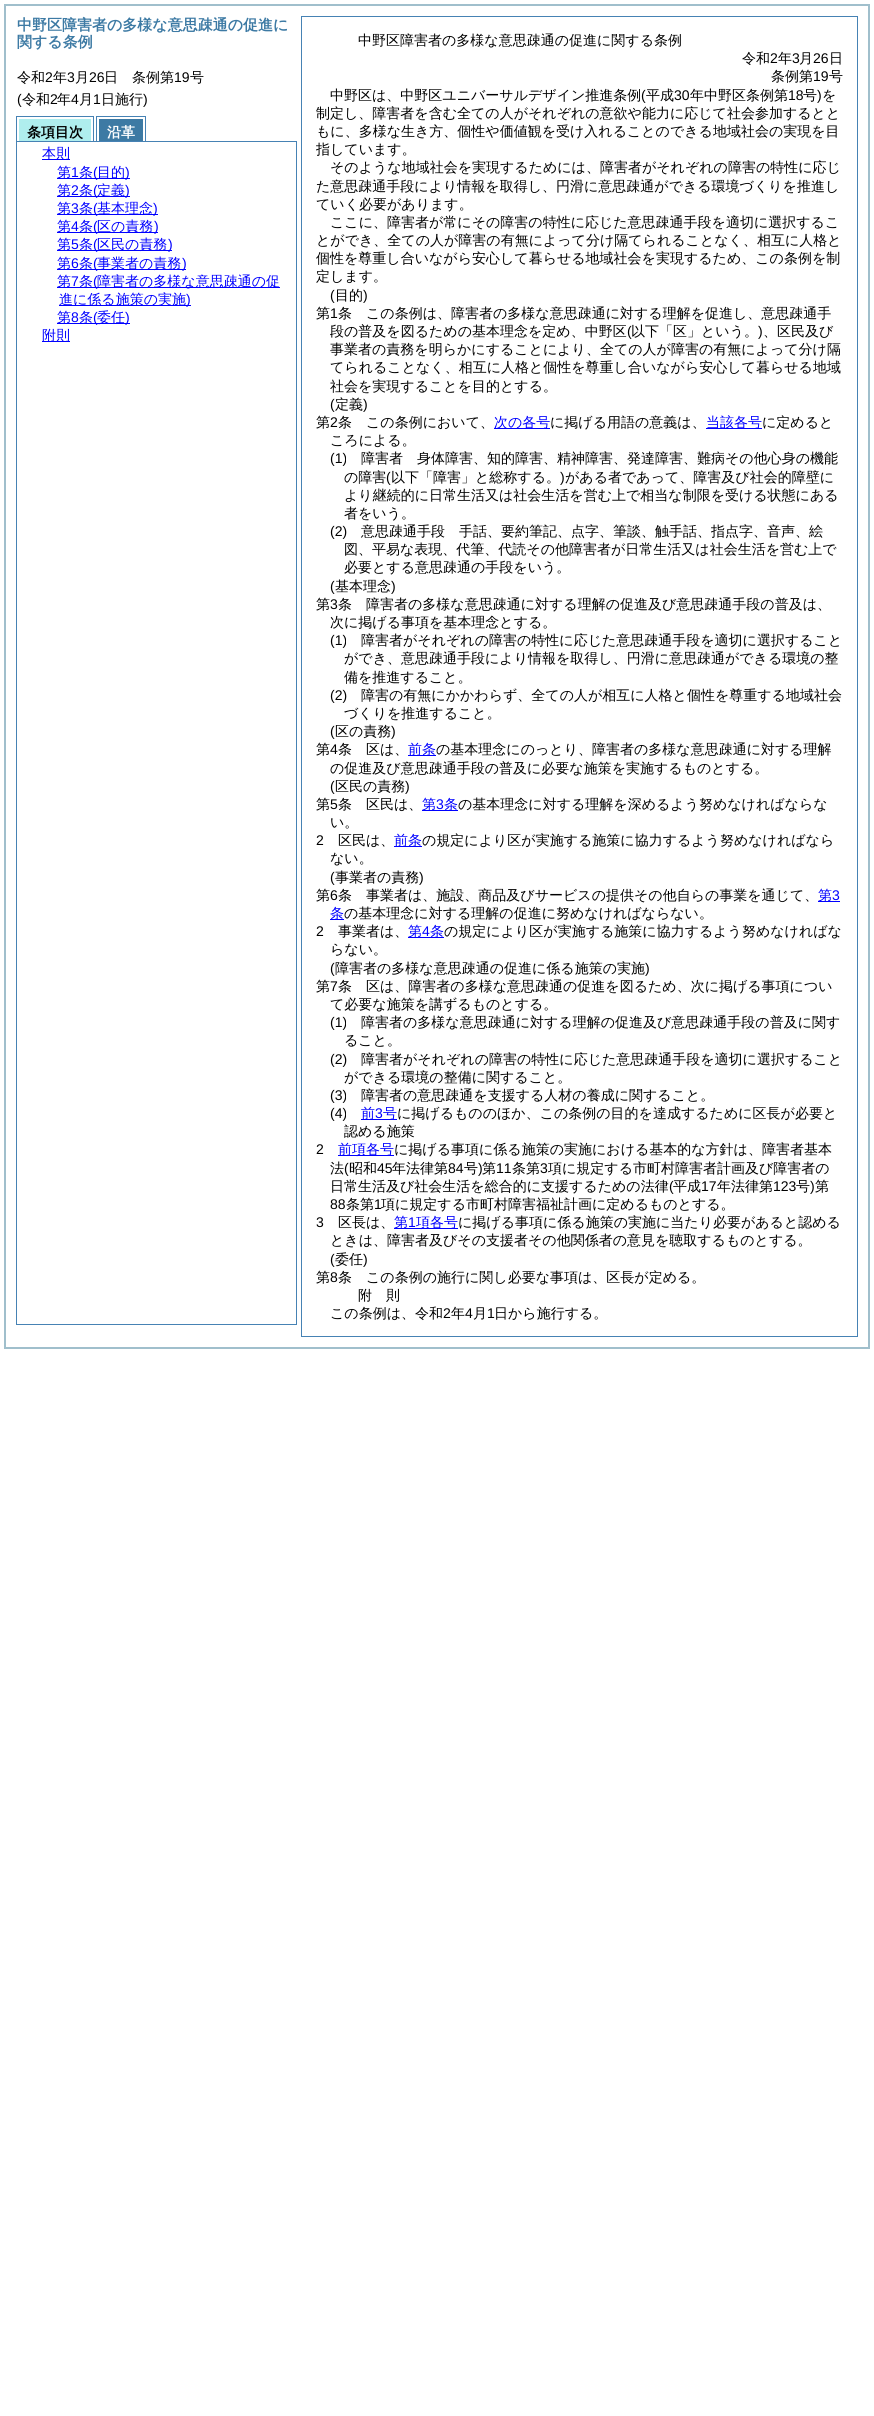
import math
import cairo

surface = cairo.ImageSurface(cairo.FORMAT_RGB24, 874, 2416)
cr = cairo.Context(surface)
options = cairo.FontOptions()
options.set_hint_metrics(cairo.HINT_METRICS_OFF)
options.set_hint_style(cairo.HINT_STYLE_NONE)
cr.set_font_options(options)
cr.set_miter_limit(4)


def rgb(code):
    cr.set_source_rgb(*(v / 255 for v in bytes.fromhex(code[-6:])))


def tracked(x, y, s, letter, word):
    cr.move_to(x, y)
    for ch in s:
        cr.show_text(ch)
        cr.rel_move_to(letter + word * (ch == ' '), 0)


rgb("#ffffff")
cr.paint()
cr.rectangle(5, 5, 864, 1343)
rgb("#a0bfcc")
cr.stroke()
for x, y, w, h, color in [
    (16, 116, 78, 1, "#4682b4"),
    (93, 116, 1, 26, "#4682b4"),
    (16, 116, 1, 26, "#4682b4"),
    (19, 119, 72, 22, "#afeeee"),
    (96, 116, 50, 1, "#4682b4"),
    (145, 116, 1, 26, "#4682b4"),
    (96, 116, 1, 26, "#4682b4"),
    (99, 119, 44, 22, "#3d7aa4"),
]:
    rgb(color)
    cr.rectangle(x, y, w, h)
    cr.fill()
cr.rectangle(16.5, 141.5, 280, 1183)
rgb("#4682b4")
cr.set_line_width(1)
cr.stroke()
for x, y, w, h, color in [
    (42, 159, 28, 1, "#0000ff"),
    (57, 178, 73, 1, "#0000ff"),
    (57, 196, 73, 1, "#0000ff"),
    (57, 214, 101, 1, "#0000ff"),
    (57, 232, 101, 1, "#0000ff"),
    (57, 250, 115, 1, "#0000ff"),
    (57, 269, 129, 1, "#0000ff"),
    (57, 287, 223, 1, "#0000ff"),
    (59, 305, 132, 1, "#0000ff"),
    (57, 323, 73, 1, "#0000ff"),
    (42, 341, 28, 1, "#0000ff"),
]:
    rgb(color)
    cr.rectangle(x, y, w, h)
    cr.fill()
cr.rectangle(301.5, 16.5, 556, 1320)
rgb("#4682b4")
cr.stroke()
for x, y, w, h, color in [
    (494, 428, 56, 1, "#0000ff"),
    (706, 428, 56, 1, "#0000ff"),
    (408, 755, 28, 1, "#0000ff"),
    (422, 810, 36, 1, "#0000ff"),
    (394, 846, 28, 1, "#0000ff"),
    (818, 901, 22, 1, "#0000ff"),
    (330, 919, 14, 1, "#0000ff"),
    (408, 937, 36, 1, "#0000ff"),
    (361, 1119, 36, 1, "#0000ff"),
    (338, 1155, 56, 1, "#0000ff"),
    (394, 1228, 64, 1, "#0000ff"),
]:
    rgb(color)
    cr.rectangle(x, y, w, h)
    cr.fill()
cr.select_font_face("WenQuanYi Zen Hei", cairo.FONT_SLANT_NORMAL, cairo.FONT_WEIGHT_BOLD)
cr.set_font_size(15)
rgb("#3d7aa4")
cr.move_to(17, 30)
cr.show_text("中野区障害者の多様な意思疎通の促進に")
cr.move_to(17, 47)
cr.show_text("関する条例")
cr.select_font_face("WenQuanYi Zen Hei Medium")
cr.set_font_size(14)
rgb("#000000")
cr.move_to(17, 82)
cr.show_text("令和")
cr.select_font_face("Liberation Sans")
cr.move_to(45, 82)
cr.show_text("2")
cr.select_font_face("WenQuanYi Zen Hei Medium")
cr.move_to(53, 82)
cr.show_text("年")
cr.select_font_face("Liberation Sans")
cr.move_to(67, 82)
cr.show_text("3")
cr.select_font_face("WenQuanYi Zen Hei Medium")
cr.move_to(75, 82)
cr.show_text("月")
cr.select_font_face("Liberation Sans")
cr.move_to(89, 82)
cr.show_text("26")
cr.select_font_face("WenQuanYi Zen Hei Medium")
cr.move_to(104, 82)
cr.show_text("日　条例第")
cr.select_font_face("Liberation Sans")
cr.move_to(174, 82)
cr.show_text("19")
cr.select_font_face("WenQuanYi Zen Hei Medium")
cr.move_to(190, 82)
cr.show_text("号")
cr.select_font_face("Liberation Sans")
cr.move_to(17, 104)
cr.show_text("(")
cr.select_font_face("WenQuanYi Zen Hei Medium")
cr.move_to(22, 104)
cr.show_text("令和")
cr.select_font_face("Liberation Sans")
cr.move_to(50, 104)
cr.show_text("2")
cr.select_font_face("WenQuanYi Zen Hei Medium")
cr.move_to(57, 104)
cr.show_text("年")
cr.select_font_face("Liberation Sans")
cr.move_to(71, 104)
cr.show_text("4")
cr.select_font_face("WenQuanYi Zen Hei Medium")
cr.move_to(79, 104)
cr.show_text("月")
cr.select_font_face("Liberation Sans")
cr.move_to(93, 104)
cr.show_text("1")
cr.select_font_face("WenQuanYi Zen Hei Medium")
cr.move_to(101, 104)
cr.show_text("日施行")
cr.select_font_face("Liberation Sans")
cr.move_to(143, 104)
cr.show_text(")")
cr.select_font_face("WenQuanYi Zen Hei", cairo.FONT_SLANT_NORMAL, cairo.FONT_WEIGHT_BOLD)
cr.move_to(27, 137)
cr.show_text("条項目次")
rgb("#ffffff")
cr.move_to(107, 137)
cr.show_text("沿革")
cr.select_font_face("WenQuanYi Zen Hei Medium")
rgb("#0000ff")
cr.move_to(42, 158)
cr.show_text("本則")
cr.move_to(57, 177)
cr.show_text("第")
cr.select_font_face("Liberation Sans")
cr.move_to(71, 177)
cr.show_text("1")
cr.select_font_face("WenQuanYi Zen Hei Medium")
cr.move_to(79, 177)
cr.show_text("条")
cr.select_font_face("Liberation Sans")
cr.move_to(93, 177)
cr.show_text("(")
cr.select_font_face("WenQuanYi Zen Hei Medium")
cr.move_to(97, 177)
cr.show_text("目的")
cr.select_font_face("Liberation Sans")
cr.move_to(125, 177)
cr.show_text(")")
cr.select_font_face("WenQuanYi Zen Hei Medium")
cr.move_to(57, 195)
cr.show_text("第")
cr.select_font_face("Liberation Sans")
cr.move_to(71, 195)
cr.show_text("2")
cr.select_font_face("WenQuanYi Zen Hei Medium")
cr.move_to(79, 195)
cr.show_text("条")
cr.select_font_face("Liberation Sans")
cr.move_to(93, 195)
cr.show_text("(")
cr.select_font_face("WenQuanYi Zen Hei Medium")
cr.move_to(97, 195)
cr.show_text("定義")
cr.select_font_face("Liberation Sans")
cr.move_to(125, 195)
cr.show_text(")")
cr.select_font_face("WenQuanYi Zen Hei Medium")
cr.move_to(57, 213)
cr.show_text("第")
cr.select_font_face("Liberation Sans")
cr.move_to(71, 213)
cr.show_text("3")
cr.select_font_face("WenQuanYi Zen Hei Medium")
cr.move_to(79, 213)
cr.show_text("条")
cr.select_font_face("Liberation Sans")
cr.move_to(93, 213)
cr.show_text("(")
cr.select_font_face("WenQuanYi Zen Hei Medium")
cr.move_to(97, 213)
cr.show_text("基本理念")
cr.select_font_face("Liberation Sans")
cr.move_to(153, 213)
cr.show_text(")")
cr.select_font_face("WenQuanYi Zen Hei Medium")
cr.move_to(57, 231)
cr.show_text("第")
cr.select_font_face("Liberation Sans")
cr.move_to(71, 231)
cr.show_text("4")
cr.select_font_face("WenQuanYi Zen Hei Medium")
cr.move_to(79, 231)
cr.show_text("条")
cr.select_font_face("Liberation Sans")
cr.move_to(93, 231)
cr.show_text("(")
cr.select_font_face("WenQuanYi Zen Hei Medium")
cr.move_to(97, 231)
cr.show_text("区の責務")
cr.select_font_face("Liberation Sans")
cr.move_to(154, 231)
cr.show_text(")")
cr.select_font_face("WenQuanYi Zen Hei Medium")
cr.move_to(57, 249)
cr.show_text("第")
cr.select_font_face("Liberation Sans")
cr.move_to(71, 249)
cr.show_text("5")
cr.select_font_face("WenQuanYi Zen Hei Medium")
cr.move_to(79, 249)
cr.show_text("条")
cr.select_font_face("Liberation Sans")
cr.move_to(93, 249)
cr.show_text("(")
cr.select_font_face("WenQuanYi Zen Hei Medium")
cr.move_to(97, 249)
cr.show_text("区民の責務")
cr.select_font_face("Liberation Sans")
cr.move_to(168, 249)
cr.show_text(")")
cr.select_font_face("WenQuanYi Zen Hei Medium")
cr.move_to(57, 268)
cr.show_text("第")
cr.select_font_face("Liberation Sans")
cr.move_to(71, 268)
cr.show_text("6")
cr.select_font_face("WenQuanYi Zen Hei Medium")
cr.move_to(79, 268)
cr.show_text("条")
cr.select_font_face("Liberation Sans")
cr.move_to(93, 268)
cr.show_text("(")
cr.select_font_face("WenQuanYi Zen Hei Medium")
cr.move_to(97, 268)
cr.show_text("事業者の責務")
cr.select_font_face("Liberation Sans")
cr.move_to(182, 268)
cr.show_text(")")
cr.select_font_face("WenQuanYi Zen Hei Medium")
cr.move_to(57, 286)
cr.show_text("第")
cr.select_font_face("Liberation Sans")
cr.move_to(71, 286)
cr.show_text("7")
cr.select_font_face("WenQuanYi Zen Hei Medium")
cr.move_to(79, 286)
cr.show_text("条")
cr.select_font_face("Liberation Sans")
cr.move_to(93, 286)
cr.show_text("(")
cr.select_font_face("WenQuanYi Zen Hei Medium")
cr.move_to(97, 286)
cr.show_text("障害者の多様な意思疎通の促")
cr.move_to(59, 304)
cr.show_text("進に係る施策の実施")
cr.select_font_face("Liberation Sans")
cr.move_to(186, 304)
cr.show_text(")")
cr.select_font_face("WenQuanYi Zen Hei Medium")
cr.move_to(57, 322)
cr.show_text("第")
cr.select_font_face("Liberation Sans")
cr.move_to(71, 322)
cr.show_text("8")
cr.select_font_face("WenQuanYi Zen Hei Medium")
cr.move_to(79, 322)
cr.show_text("条")
cr.select_font_face("Liberation Sans")
cr.move_to(93, 322)
cr.show_text("(")
cr.select_font_face("WenQuanYi Zen Hei Medium")
cr.move_to(97, 322)
cr.show_text("委任")
cr.select_font_face("Liberation Sans")
cr.move_to(125, 322)
cr.show_text(")")
cr.select_font_face("WenQuanYi Zen Hei Medium")
cr.move_to(42, 340)
cr.show_text("附則")
rgb("#000000")
cr.move_to(358, 45)
cr.show_text("中野区障害者の多様な意思疎通の促進に関する条例")
cr.move_to(742, 63)
cr.show_text("令和")
cr.select_font_face("Liberation Sans")
cr.move_to(770, 63)
cr.show_text("2")
cr.select_font_face("WenQuanYi Zen Hei Medium")
cr.move_to(778, 63)
cr.show_text("年")
cr.select_font_face("Liberation Sans")
cr.move_to(792, 63)
cr.show_text("3")
cr.select_font_face("WenQuanYi Zen Hei Medium")
cr.move_to(799, 63)
cr.show_text("月")
cr.select_font_face("Liberation Sans")
cr.move_to(813, 63)
cr.show_text("26")
cr.select_font_face("WenQuanYi Zen Hei Medium")
cr.move_to(829, 63)
cr.show_text("日")
cr.move_to(771, 81)
cr.show_text("条例第")
cr.select_font_face("Liberation Sans")
cr.move_to(813, 81)
cr.show_text("19")
cr.select_font_face("WenQuanYi Zen Hei Medium")
cr.move_to(829, 81)
cr.show_text("号")
cr.move_to(330, 100)
cr.show_text("中野区は、中野区ユニバーサルデザイン推進条例")
cr.select_font_face("Liberation Sans")
cr.move_to(641, 100)
cr.show_text("(")
cr.select_font_face("WenQuanYi Zen Hei Medium")
cr.move_to(646, 100)
cr.show_text("平成")
cr.select_font_face("Liberation Sans")
cr.move_to(674, 100)
cr.show_text("30")
cr.select_font_face("WenQuanYi Zen Hei Medium")
cr.move_to(690, 100)
cr.show_text("年中野区条例第")
cr.select_font_face("Liberation Sans")
cr.move_to(788, 100)
cr.show_text("18")
cr.select_font_face("WenQuanYi Zen Hei Medium")
cr.move_to(803, 100)
cr.show_text("号")
cr.select_font_face("Liberation Sans")
cr.move_to(817, 100)
cr.show_text(")")
cr.select_font_face("WenQuanYi Zen Hei Medium")
for x, y, s in [
    (822, 100, "を"),
    (316, 118, "制定し、障害者を含む全ての人がそれぞれの意欲や能力に応じて社会参加するとと"),
    (316, 136, "もに、多様な生き方、個性や価値観を受け入れることのできる地域社会の実現を目"),
    (316, 154, "指しています。"),
    (330, 172, "そのような地域社会を実現するためには、障害者がそれぞれの障害の特性に応じ"),
    (316, 191, "た意思疎通手段により情報を取得し、円滑に意思疎通ができる環境づくりを推進し"),
    (316, 209, "ていく必要があります。"),
    (330, 227, "ここに、障害者が常にその障害の特性に応じた意思疎通手段を適切に選択するこ"),
    (316, 245, "とができ、全ての人が障害の有無によって分け隔てられることなく、相互に人格と"),
    (316, 263, "個性を尊重し合いながら安心して暮らせる地域社会を実現するため、この条例を制"),
    (316, 281, "定します。"),
]:
    cr.move_to(x, y)
    cr.show_text(s)
cr.select_font_face("Liberation Sans")
cr.move_to(330, 300)
cr.show_text("(")
cr.select_font_face("WenQuanYi Zen Hei Medium")
cr.move_to(335, 300)
cr.show_text("目的")
cr.select_font_face("Liberation Sans")
cr.move_to(363, 300)
cr.show_text(")")
cr.select_font_face("WenQuanYi Zen Hei Medium")
cr.move_to(316, 318)
cr.show_text("第")
cr.select_font_face("Liberation Sans")
cr.move_to(330, 318)
cr.show_text("1")
cr.select_font_face("WenQuanYi Zen Hei Medium")
for x, y, s in [
    (338, 318, "条"),
    (366, 318, "この条例は、障害者の多様な意思疎通に対する理解を促進し、意思疎通手"),
    (330, 336, "段の普及を図るための基本理念を定め、中野区"),
]:
    cr.move_to(x, y)
    cr.show_text(s)
cr.select_font_face("Liberation Sans")
cr.move_to(627, 336)
cr.show_text("(")
cr.select_font_face("WenQuanYi Zen Hei Medium")
cr.move_to(631, 336)
cr.show_text("以下「区」という。")
cr.select_font_face("Liberation Sans")
cr.move_to(758, 336)
cr.show_text(")")
cr.select_font_face("WenQuanYi Zen Hei Medium")
for x, y, s in [
    (763, 336, "、区民及び"),
    (330, 354, "事業者の責務を明らかにすることにより、全ての人が障害の有無によって分け隔"),
    (330, 372, "てられることなく、相互に人格と個性を尊重し合いながら安心して暮らせる地域"),
    (330, 391, "社会を実現することを目的とする。"),
]:
    cr.move_to(x, y)
    cr.show_text(s)
cr.select_font_face("Liberation Sans")
cr.move_to(330, 409)
cr.show_text("(")
cr.select_font_face("WenQuanYi Zen Hei Medium")
cr.move_to(335, 409)
cr.show_text("定義")
cr.select_font_face("Liberation Sans")
cr.move_to(363, 409)
cr.show_text(")")
cr.select_font_face("WenQuanYi Zen Hei Medium")
cr.move_to(316, 427)
cr.show_text("第")
cr.select_font_face("Liberation Sans")
cr.move_to(330, 427)
cr.show_text("2")
cr.select_font_face("WenQuanYi Zen Hei Medium")
cr.move_to(338, 427)
cr.show_text("条")
cr.move_to(366, 427)
cr.show_text("この条例において、")
rgb("#0000ff")
cr.move_to(494, 427)
cr.show_text("次の各号")
rgb("#000000")
cr.move_to(550, 427)
cr.show_text("に掲げる用語の意義は、")
rgb("#0000ff")
cr.move_to(706, 427)
cr.show_text("当該各号")
rgb("#000000")
cr.move_to(762, 427)
cr.show_text("に定めると")
cr.move_to(330, 445)
cr.show_text("ころによる。")
cr.select_font_face("Liberation Sans")
cr.move_to(330, 463)
cr.show_text("(1)")
cr.select_font_face("WenQuanYi Zen Hei Medium")
cr.move_to(361, 463)
cr.show_text("障害者　身体障害、知的障害、精神障害、発達障害、難病その他心身の機能")
cr.move_to(344, 482)
cr.show_text("の障害")
cr.select_font_face("Liberation Sans")
cr.move_to(386, 482)
cr.show_text("(")
cr.select_font_face("WenQuanYi Zen Hei Medium")
cr.move_to(391, 482)
cr.show_text("以下「障害」と総称する。")
cr.select_font_face("Liberation Sans")
cr.move_to(560, 482)
cr.show_text(")")
cr.select_font_face("WenQuanYi Zen Hei Medium")
for x, y, s in [
    (565, 482, "がある者であって、障害及び社会的障壁に"),
    (344, 500, "より継続的に日常生活又は社会生活を営む上で相当な制限を受ける状態にある"),
    (344, 518, "者をいう。"),
]:
    cr.move_to(x, y)
    cr.show_text(s)
cr.select_font_face("Liberation Sans")
cr.move_to(330, 536)
cr.show_text("(2)")
cr.select_font_face("WenQuanYi Zen Hei Medium")
for x, y, s in [
    (361, 536, "意思疎通手段　手話、要約筆記、点字、筆談、触手話、指点字、音声、絵"),
    (344, 554, "図、平易な表現、代筆、代読その他障害者が日常生活又は社会生活を営む上で"),
    (344, 572, "必要とする意思疎通の手段をいう。"),
]:
    cr.move_to(x, y)
    cr.show_text(s)
cr.select_font_face("Liberation Sans")
cr.move_to(330, 591)
cr.show_text("(")
cr.select_font_face("WenQuanYi Zen Hei Medium")
cr.move_to(335, 591)
cr.show_text("基本理念")
cr.select_font_face("Liberation Sans")
cr.move_to(391, 591)
cr.show_text(")")
cr.select_font_face("WenQuanYi Zen Hei Medium")
cr.move_to(316, 609)
cr.show_text("第")
cr.select_font_face("Liberation Sans")
cr.move_to(330, 609)
cr.show_text("3")
cr.select_font_face("WenQuanYi Zen Hei Medium")
for x, y, s in [
    (338, 609, "条"),
    (366, 609, "障害者の多様な意思疎通に対する理解の促進及び意思疎通手段の普及は、"),
    (330, 627, "次に掲げる事項を基本理念とする。"),
]:
    cr.move_to(x, y)
    cr.show_text(s)
cr.select_font_face("Liberation Sans")
cr.move_to(330, 645)
cr.show_text("(1)")
cr.select_font_face("WenQuanYi Zen Hei Medium")
for x, y, s in [
    (361, 645, "障害者がそれぞれの障害の特性に応じた意思疎通手段を適切に選択すること"),
    (344, 663, "ができ、意思疎通手段により情報を取得し、円滑に意思疎通ができる環境の整"),
    (344, 682, "備を推進すること。"),
]:
    cr.move_to(x, y)
    cr.show_text(s)
cr.select_font_face("Liberation Sans")
cr.move_to(330, 700)
cr.show_text("(2)")
cr.select_font_face("WenQuanYi Zen Hei Medium")
cr.move_to(361, 700)
cr.show_text("障害の有無にかかわらず、全ての人が相互に人格と個性を尊重する地域社会")
cr.move_to(344, 718)
cr.show_text("づくりを推進すること。")
cr.select_font_face("Liberation Sans")
cr.move_to(330, 736)
cr.show_text("(")
cr.select_font_face("WenQuanYi Zen Hei Medium")
cr.move_to(335, 736)
cr.show_text("区の責務")
cr.select_font_face("Liberation Sans")
cr.move_to(391, 736)
cr.show_text(")")
cr.select_font_face("WenQuanYi Zen Hei Medium")
cr.move_to(316, 754)
cr.show_text("第")
cr.select_font_face("Liberation Sans")
cr.move_to(330, 754)
cr.show_text("4")
cr.select_font_face("WenQuanYi Zen Hei Medium")
cr.move_to(338, 754)
cr.show_text("条")
cr.move_to(366, 754)
cr.show_text("区は、")
rgb("#0000ff")
cr.move_to(408, 754)
cr.show_text("前条")
rgb("#000000")
cr.move_to(436, 754)
cr.show_text("の基本理念にのっとり、障害者の多様な意思疎通に対する理解")
cr.move_to(330, 773)
cr.show_text("の促進及び意思疎通手段の普及に必要な施策を実施するものとする。")
cr.select_font_face("Liberation Sans")
cr.move_to(330, 791)
cr.show_text("(")
cr.select_font_face("WenQuanYi Zen Hei Medium")
cr.move_to(335, 791)
cr.show_text("区民の責務")
cr.select_font_face("Liberation Sans")
cr.move_to(405, 791)
cr.show_text(")")
cr.select_font_face("WenQuanYi Zen Hei Medium")
cr.move_to(316, 809)
cr.show_text("第")
cr.select_font_face("Liberation Sans")
cr.move_to(330, 809)
cr.show_text("5")
cr.select_font_face("WenQuanYi Zen Hei Medium")
cr.move_to(338, 809)
cr.show_text("条")
cr.move_to(366, 809)
cr.show_text("区民は、")
rgb("#0000ff")
cr.move_to(422, 809)
cr.show_text("第")
cr.select_font_face("Liberation Sans")
cr.move_to(436, 809)
cr.show_text("3")
cr.select_font_face("WenQuanYi Zen Hei Medium")
cr.move_to(444, 809)
cr.show_text("条")
rgb("#000000")
cr.move_to(458, 809)
cr.show_text("の基本理念に対する理解を深めるよう努めなければならな")
cr.move_to(330, 827)
cr.show_text("い。")
cr.select_font_face("Liberation Sans")
cr.move_to(316, 845)
cr.show_text("2")
cr.select_font_face("WenQuanYi Zen Hei Medium")
cr.move_to(338, 845)
cr.show_text("区民は、")
rgb("#0000ff")
cr.move_to(394, 845)
cr.show_text("前条")
rgb("#000000")
cr.move_to(422, 845)
cr.show_text("の規定により区が実施する施策に協力するよう努めなければなら")
cr.move_to(330, 863)
cr.show_text("ない。")
cr.select_font_face("Liberation Sans")
cr.move_to(330, 882)
cr.show_text("(")
cr.select_font_face("WenQuanYi Zen Hei Medium")
cr.move_to(335, 882)
cr.show_text("事業者の責務")
cr.select_font_face("Liberation Sans")
cr.move_to(419, 882)
cr.show_text(")")
cr.select_font_face("WenQuanYi Zen Hei Medium")
cr.move_to(316, 900)
cr.show_text("第")
cr.select_font_face("Liberation Sans")
cr.move_to(330, 900)
cr.show_text("6")
cr.select_font_face("WenQuanYi Zen Hei Medium")
cr.move_to(338, 900)
cr.show_text("条")
cr.move_to(366, 900)
cr.show_text("事業者は、施設、商品及びサービスの提供その他自らの事業を通じて、")
rgb("#0000ff")
cr.move_to(818, 900)
cr.show_text("第")
cr.select_font_face("Liberation Sans")
cr.move_to(832, 900)
cr.show_text("3")
cr.select_font_face("WenQuanYi Zen Hei Medium")
cr.move_to(330, 918)
cr.show_text("条")
rgb("#000000")
cr.move_to(344, 918)
cr.show_text("の基本理念に対する理解の促進に努めなければならない。")
cr.select_font_face("Liberation Sans")
cr.move_to(316, 936)
cr.show_text("2")
cr.select_font_face("WenQuanYi Zen Hei Medium")
cr.move_to(338, 936)
cr.show_text("事業者は、")
rgb("#0000ff")
cr.move_to(408, 936)
cr.show_text("第")
cr.select_font_face("Liberation Sans")
cr.move_to(422, 936)
cr.show_text("4")
cr.select_font_face("WenQuanYi Zen Hei Medium")
cr.move_to(430, 936)
cr.show_text("条")
rgb("#000000")
cr.move_to(444, 936)
cr.show_text("の規定により区が実施する施策に協力するよう努めなければな")
cr.move_to(330, 954)
cr.show_text("らない。")
cr.select_font_face("Liberation Sans")
cr.move_to(330, 973)
cr.show_text("(")
cr.select_font_face("WenQuanYi Zen Hei Medium")
cr.move_to(335, 973)
cr.show_text("障害者の多様な意思疎通の促進に係る施策の実施")
cr.select_font_face("Liberation Sans")
cr.move_to(645, 973)
cr.show_text(")")
cr.select_font_face("WenQuanYi Zen Hei Medium")
cr.move_to(316, 991)
cr.show_text("第")
cr.select_font_face("Liberation Sans")
cr.move_to(330, 991)
cr.show_text("7")
cr.select_font_face("WenQuanYi Zen Hei Medium")
for x, y, s in [
    (338, 991, "条"),
    (366, 991, "区は、障害者の多様な意思疎通の促進を図るため、次に掲げる事項につい"),
    (330, 1009, "て必要な施策を講ずるものとする。"),
]:
    cr.move_to(x, y)
    cr.show_text(s)
cr.select_font_face("Liberation Sans")
cr.move_to(330, 1027)
cr.show_text("(1)")
cr.select_font_face("WenQuanYi Zen Hei Medium")
cr.move_to(361, 1027)
cr.show_text("障害者の多様な意思疎通に対する理解の促進及び意思疎通手段の普及に関す")
cr.move_to(344, 1045)
cr.show_text("ること。")
cr.select_font_face("Liberation Sans")
cr.move_to(330, 1064)
cr.show_text("(2)")
cr.select_font_face("WenQuanYi Zen Hei Medium")
cr.move_to(361, 1064)
cr.show_text("障害者がそれぞれの障害の特性に応じた意思疎通手段を適切に選択すること")
cr.move_to(344, 1082)
cr.show_text("ができる環境の整備に関すること。")
cr.select_font_face("Liberation Sans")
cr.move_to(330, 1100)
cr.show_text("(3)")
cr.select_font_face("WenQuanYi Zen Hei Medium")
cr.move_to(361, 1100)
cr.show_text("障害者の意思疎通を支援する人材の養成に関すること。")
cr.select_font_face("Liberation Sans")
cr.move_to(330, 1118)
cr.show_text("(4)")
cr.select_font_face("WenQuanYi Zen Hei Medium")
rgb("#0000ff")
cr.move_to(361, 1118)
cr.show_text("前")
cr.select_font_face("Liberation Sans")
cr.move_to(375, 1118)
cr.show_text("3")
cr.select_font_face("WenQuanYi Zen Hei Medium")
cr.move_to(383, 1118)
cr.show_text("号")
rgb("#000000")
cr.move_to(397, 1118)
cr.show_text("に掲げるもののほか、この条例の目的を達成するために区長が必要と")
cr.move_to(344, 1136)
cr.show_text("認める施策")
cr.select_font_face("Liberation Sans")
cr.move_to(316, 1154)
cr.show_text("2")
cr.select_font_face("WenQuanYi Zen Hei Medium")
rgb("#0000ff")
cr.move_to(338, 1154)
cr.show_text("前項各号")
rgb("#000000")
cr.move_to(394, 1154)
cr.show_text("に掲げる事項に係る施策の実施における基本的な方針は、障害者基本")
cr.move_to(330, 1173)
cr.show_text("法")
cr.select_font_face("Liberation Sans")
cr.move_to(344, 1173)
cr.show_text("(")
cr.select_font_face("WenQuanYi Zen Hei Medium")
cr.move_to(349, 1173)
cr.show_text("昭和")
cr.select_font_face("Liberation Sans")
cr.move_to(377, 1173)
cr.show_text("45")
cr.select_font_face("WenQuanYi Zen Hei Medium")
cr.move_to(392, 1173)
cr.show_text("年法律第")
cr.select_font_face("Liberation Sans")
cr.move_to(448, 1173)
cr.show_text("84")
cr.select_font_face("WenQuanYi Zen Hei Medium")
cr.move_to(464, 1173)
cr.show_text("号")
cr.select_font_face("Liberation Sans")
cr.move_to(478, 1173)
cr.show_text(")")
cr.select_font_face("WenQuanYi Zen Hei Medium")
cr.move_to(482, 1173)
cr.show_text("第")
cr.select_font_face("Liberation Sans")
cr.move_to(496, 1173)
cr.show_text("11")
cr.select_font_face("WenQuanYi Zen Hei Medium")
cr.move_to(512, 1173)
cr.show_text("条第")
cr.select_font_face("Liberation Sans")
cr.move_to(540, 1173)
cr.show_text("3")
cr.select_font_face("WenQuanYi Zen Hei Medium")
cr.move_to(548, 1173)
cr.show_text("項に規定する市町村障害者計画及び障害者の")
cr.move_to(330, 1191)
cr.show_text("日常生活及び社会生活を総合的に支援するための法律")
cr.select_font_face("Liberation Sans")
cr.move_to(669, 1191)
cr.show_text("(")
cr.select_font_face("WenQuanYi Zen Hei Medium")
cr.move_to(673, 1191)
cr.show_text("平成")
cr.select_font_face("Liberation Sans")
cr.move_to(701, 1191)
cr.show_text("17")
cr.select_font_face("WenQuanYi Zen Hei Medium")
cr.move_to(717, 1191)
cr.show_text("年法律第")
cr.select_font_face("Liberation Sans")
cr.move_to(773, 1191)
cr.show_text("123")
cr.select_font_face("WenQuanYi Zen Hei Medium")
cr.move_to(796, 1191)
cr.show_text("号")
cr.select_font_face("Liberation Sans")
cr.move_to(810, 1191)
cr.show_text(")")
cr.select_font_face("WenQuanYi Zen Hei Medium")
cr.move_to(815, 1191)
cr.show_text("第")
cr.select_font_face("Liberation Sans")
cr.move_to(330, 1209)
cr.show_text("88")
cr.select_font_face("WenQuanYi Zen Hei Medium")
cr.move_to(346, 1209)
cr.show_text("条第")
cr.select_font_face("Liberation Sans")
cr.move_to(374, 1209)
cr.show_text("1")
cr.select_font_face("WenQuanYi Zen Hei Medium")
cr.move_to(381, 1209)
cr.show_text("項に規定する市町村障害福祉計画に定めるものとする。")
cr.select_font_face("Liberation Sans")
cr.move_to(316, 1227)
cr.show_text("3")
cr.select_font_face("WenQuanYi Zen Hei Medium")
cr.move_to(338, 1227)
cr.show_text("区長は、")
rgb("#0000ff")
cr.move_to(394, 1227)
cr.show_text("第")
cr.select_font_face("Liberation Sans")
cr.move_to(408, 1227)
cr.show_text("1")
cr.select_font_face("WenQuanYi Zen Hei Medium")
cr.move_to(416, 1227)
cr.show_text("項各号")
rgb("#000000")
cr.move_to(458, 1227)
cr.show_text("に掲げる事項に係る施策の実施に当たり必要があると認める")
cr.move_to(330, 1245)
cr.show_text("ときは、障害者及びその支援者その他関係者の意見を聴取するものとする。")
cr.select_font_face("Liberation Sans")
cr.move_to(330, 1264)
cr.show_text("(")
cr.select_font_face("WenQuanYi Zen Hei Medium")
cr.move_to(335, 1264)
cr.show_text("委任")
cr.select_font_face("Liberation Sans")
cr.move_to(363, 1264)
cr.show_text(")")
cr.select_font_face("WenQuanYi Zen Hei Medium")
cr.move_to(316, 1282)
cr.show_text("第")
cr.select_font_face("Liberation Sans")
cr.move_to(330, 1282)
cr.show_text("8")
cr.select_font_face("WenQuanYi Zen Hei Medium")
cr.move_to(338, 1282)
cr.show_text("条")
cr.move_to(366, 1282)
cr.show_text("この条例の施行に関し必要な事項は、区長が定める。")
tracked(358, 1300, "附", 14, 0)
cr.move_to(386, 1300)
cr.show_text("則")
cr.move_to(330, 1318)
cr.show_text("この条例は、令和")
cr.select_font_face("Liberation Sans")
cr.move_to(443, 1318)
cr.show_text("2")
cr.select_font_face("WenQuanYi Zen Hei Medium")
cr.move_to(451, 1318)
cr.show_text("年")
cr.select_font_face("Liberation Sans")
cr.move_to(465, 1318)
cr.show_text("4")
cr.select_font_face("WenQuanYi Zen Hei Medium")
cr.move_to(473, 1318)
cr.show_text("月")
cr.select_font_face("Liberation Sans")
cr.move_to(487, 1318)
cr.show_text("1")
cr.select_font_face("WenQuanYi Zen Hei Medium")
cr.move_to(494, 1318)
cr.show_text("日から施行する。")
surface.write_to_png("page.png")
